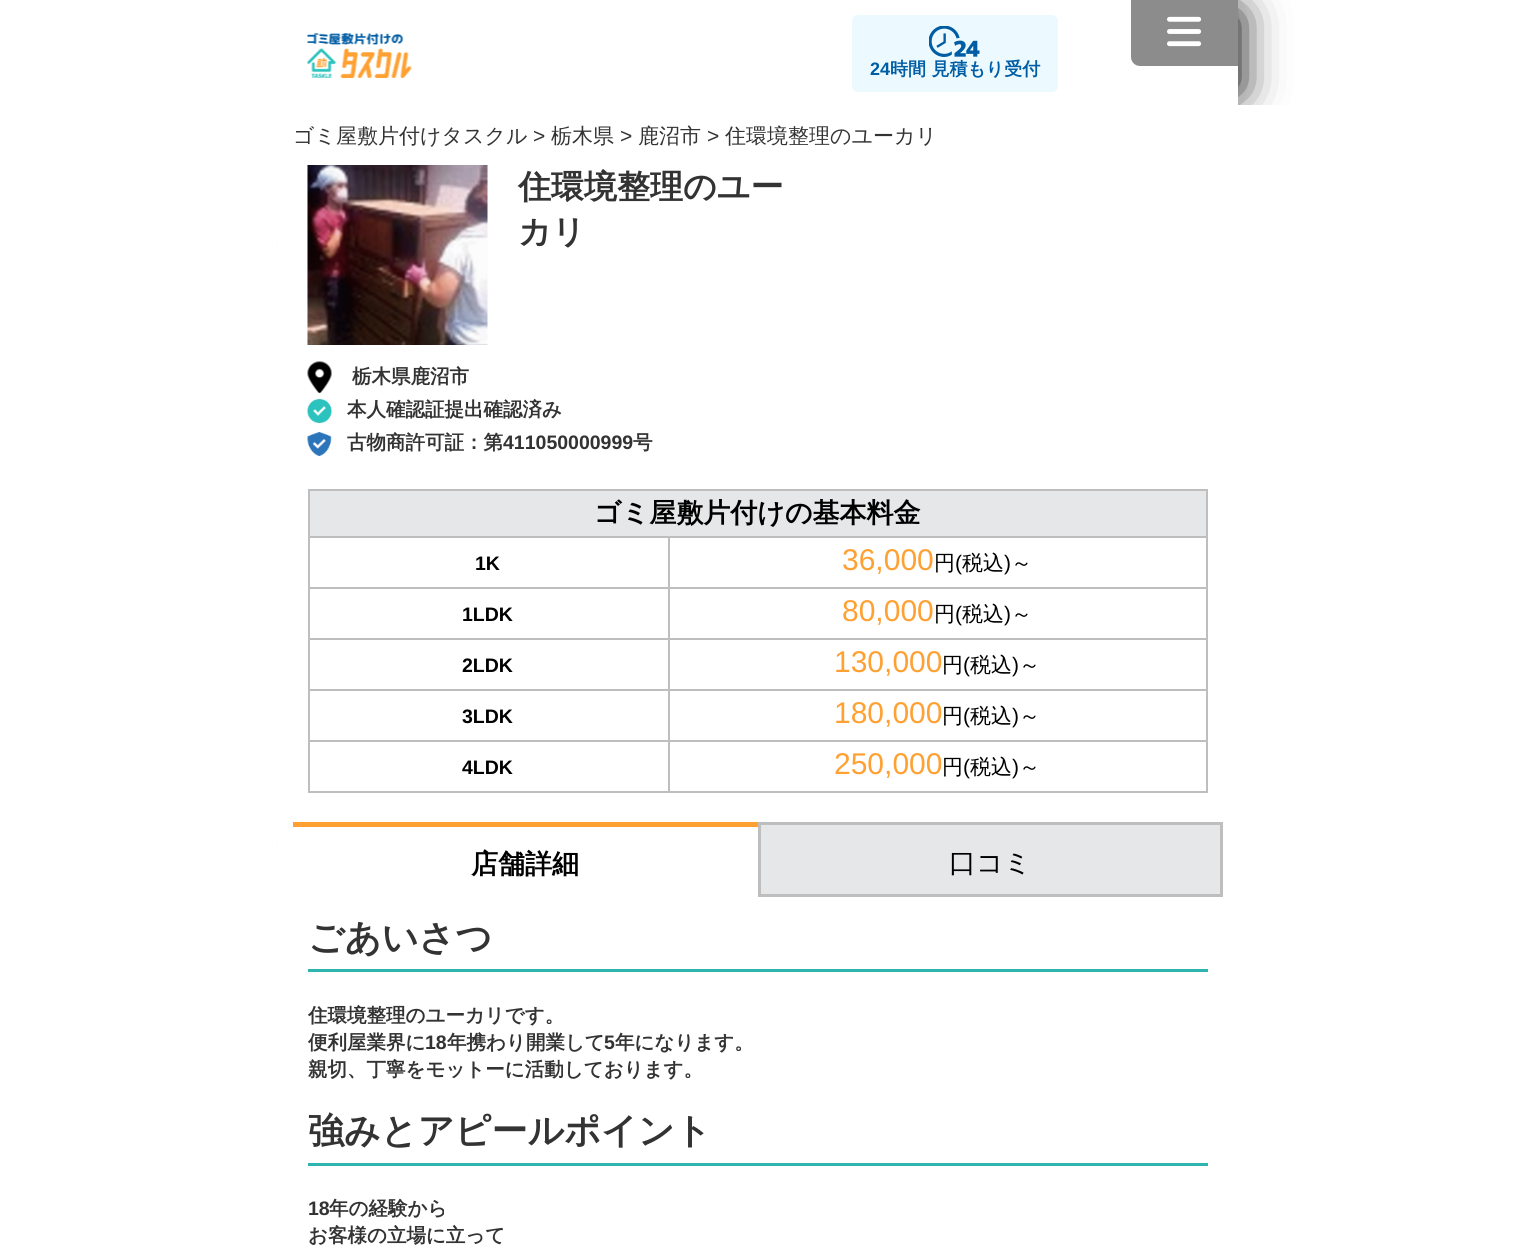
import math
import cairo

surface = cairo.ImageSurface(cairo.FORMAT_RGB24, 1515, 1260)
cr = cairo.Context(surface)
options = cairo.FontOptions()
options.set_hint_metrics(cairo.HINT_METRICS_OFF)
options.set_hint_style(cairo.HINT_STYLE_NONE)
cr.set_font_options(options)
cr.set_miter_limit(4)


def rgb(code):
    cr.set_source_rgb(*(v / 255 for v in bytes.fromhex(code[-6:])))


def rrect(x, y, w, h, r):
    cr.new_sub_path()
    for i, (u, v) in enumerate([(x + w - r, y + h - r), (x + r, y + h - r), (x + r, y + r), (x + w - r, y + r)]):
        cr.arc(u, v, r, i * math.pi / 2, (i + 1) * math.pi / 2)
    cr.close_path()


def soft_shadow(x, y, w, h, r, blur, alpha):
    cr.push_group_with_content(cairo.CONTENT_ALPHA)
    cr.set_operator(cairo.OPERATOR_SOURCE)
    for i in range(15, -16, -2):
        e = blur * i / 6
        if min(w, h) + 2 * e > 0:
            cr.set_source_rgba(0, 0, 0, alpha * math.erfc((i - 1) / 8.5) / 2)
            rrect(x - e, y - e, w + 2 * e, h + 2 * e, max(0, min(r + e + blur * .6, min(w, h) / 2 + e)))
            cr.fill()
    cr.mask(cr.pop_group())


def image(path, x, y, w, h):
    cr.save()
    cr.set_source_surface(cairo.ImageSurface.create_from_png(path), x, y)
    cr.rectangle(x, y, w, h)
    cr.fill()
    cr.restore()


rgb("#ffffff")
cr.paint()
image("img/1.png", 277, 105, 1, 1146)
cr.save()
cr.rectangle(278, 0, 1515, 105)
cr.clip()
cr.set_fill_rule(cairo.FILL_RULE_EVEN_ODD)
cr.new_path()
cr.move_to(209, 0)
cr.line_to(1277, 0)
cr.line_to(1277, 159)
cr.line_to(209, 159)
cr.close_path()
cr.move_to(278, 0)
cr.line_to(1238, 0)
cr.line_to(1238, 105)
cr.line_to(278, 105)
cr.close_path()
cr.clip()
rgb("#000000")
soft_shadow(278, 15, 930, 75, 0, 22.5, 1)
cr.restore()
cr.save()
cr.rectangle(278, 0, 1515, 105)
cr.clip()
cr.set_fill_rule(cairo.FILL_RULE_EVEN_ODD)
cr.new_path()
cr.move_to(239, 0)
cr.line_to(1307, 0)
cr.line_to(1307, 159)
cr.line_to(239, 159)
cr.close_path()
cr.move_to(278, 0)
cr.line_to(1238, 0)
cr.line_to(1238, 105)
cr.line_to(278, 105)
cr.close_path()
cr.clip()
rgb("#000000")
soft_shadow(308, 15, 930, 75, 0, 22.5, 1)
cr.restore()
image("img/2.png", 307, 33, 105, 45)
rgb("#ecfaff")
rrect(852, 15, 206, 77, 6)
cr.fill()
image("img/3.png", 929, 26, 51, 31)
rgb("#8d8c8d")
cr.new_path()
cr.move_to(1131, 0)
cr.line_to(1238, 0)
cr.line_to(1238, 66)
cr.line_to(1140, 66)
cr.curve_to(1135, 66, 1131, 62, 1131, 57)
cr.close_path()
cr.fill()
image("img/4.png", 1167, 16, 35, 31)
image("img/5.png", 307, 165, 181, 180)
image("img/6.png", 307, 361, 25, 32)
image("img/7.png", 307, 399, 25, 24)
image("img/8.png", 307, 432, 25, 24)
for x, y, w, h, color in [
    (310, 491, 896, 45, "#e6e7e8"),
    (308, 489, 900, 2, "#bebebe"),
    (668, 536, 540, 2, "#bebebe"),
    (668, 587, 540, 2, "#bebebe"),
    (668, 638, 540, 2, "#bebebe"),
    (668, 689, 540, 2, "#bebebe"),
    (668, 740, 540, 2, "#bebebe"),
    (1206, 740, 2, 52, "#bebebe"),
    (1206, 689, 2, 52, "#bebebe"),
    (1206, 638, 2, 52, "#bebebe"),
    (1206, 587, 2, 52, "#bebebe"),
    (1206, 536, 2, 52, "#bebebe"),
    (1206, 489, 2, 48, "#bebebe"),
    (668, 791, 540, 2, "#bebebe"),
    (668, 740, 2, 52, "#bebebe"),
    (308, 740, 361, 2, "#bebebe"),
    (668, 689, 2, 52, "#bebebe"),
    (308, 689, 361, 2, "#bebebe"),
    (668, 638, 2, 52, "#bebebe"),
    (308, 638, 361, 2, "#bebebe"),
    (668, 587, 2, 52, "#bebebe"),
    (308, 587, 361, 2, "#bebebe"),
    (668, 536, 2, 52, "#bebebe"),
    (308, 536, 361, 2, "#bebebe"),
    (308, 791, 361, 2, "#bebebe"),
    (308, 740, 2, 52, "#bebebe"),
    (308, 689, 2, 52, "#bebebe"),
    (308, 638, 2, 52, "#bebebe"),
    (308, 587, 2, 52, "#bebebe"),
    (308, 536, 2, 52, "#bebebe"),
    (308, 489, 2, 48, "#bebebe"),
    (293, 822, 465, 5, "#ffa132"),
]:
    rgb(color)
    cr.rectangle(x, y, w, h)
    cr.fill()
rgb("#e6e7e8")
cr.rectangle(759.5, 823.5, 462, 72)
cr.fill_preserve()
rgb("#bebebe")
cr.set_line_width(3)
cr.stroke()
rgb("#2db4af")
cr.rectangle(308, 969, 900, 3)
cr.fill()
cr.rectangle(308, 1163, 900, 3)
cr.fill()
cr.select_font_face("Liberation Sans", cairo.FONT_SLANT_NORMAL, cairo.FONT_WEIGHT_BOLD)
cr.set_font_size(18)
rgb("#005da4")
cr.move_to(870, 75)
cr.show_text("24")
cr.select_font_face("WenQuanYi Zen Hei", cairo.FONT_SLANT_NORMAL, cairo.FONT_WEIGHT_BOLD)
cr.move_to(890, 75)
cr.show_text("時間 見積もり受付")
cr.select_font_face("WenQuanYi Zen Hei Medium")
cr.set_font_size(21)
rgb("#333333")
cr.move_to(293, 143)
cr.show_text("ゴミ屋敷片付けタスクル")
cr.select_font_face("Liberation Sans")
cr.move_to(533, 143)
cr.show_text(">")
cr.select_font_face("WenQuanYi Zen Hei Medium")
cr.move_to(551, 143)
cr.show_text("栃木県")
cr.select_font_face("Liberation Sans")
cr.move_to(620, 143)
cr.show_text(">")
cr.select_font_face("WenQuanYi Zen Hei Medium")
cr.move_to(638, 143)
cr.show_text("鹿沼市")
cr.select_font_face("Liberation Sans")
cr.move_to(707, 143)
cr.show_text(">")
cr.select_font_face("WenQuanYi Zen Hei Medium")
cr.move_to(725, 143)
cr.show_text("住環境整理のユーカリ")
cr.select_font_face("WenQuanYi Zen Hei", cairo.FONT_SLANT_NORMAL, cairo.FONT_WEIGHT_BOLD)
cr.set_font_size(33)
cr.move_to(518, 198)
cr.show_text("住環境整理のユー")
cr.move_to(518, 243)
cr.show_text("カリ")
cr.set_font_size(19.5)
for x, y, s in [
    (352, 383, "栃木県鹿沼市"),
    (347, 416, "本人確認証提出確認済み"),
    (347, 449, "古物商許可証：第"),
]:
    cr.move_to(x, y)
    cr.show_text(s)
cr.select_font_face("Liberation Sans", cairo.FONT_SLANT_NORMAL, cairo.FONT_WEIGHT_BOLD)
cr.move_to(503, 449)
cr.show_text("411050000999")
cr.select_font_face("WenQuanYi Zen Hei", cairo.FONT_SLANT_NORMAL, cairo.FONT_WEIGHT_BOLD)
cr.move_to(633, 449)
cr.show_text("号")
cr.set_font_size(27)
rgb("#000000")
cr.move_to(594, 522)
cr.show_text("ゴミ屋敷片付けの基本料金")
cr.select_font_face("Liberation Sans", cairo.FONT_SLANT_NORMAL, cairo.FONT_WEIGHT_BOLD)
cr.set_font_size(19.5)
cr.move_to(475, 570)
cr.show_text("1K")
cr.select_font_face("Liberation Sans")
cr.set_font_size(30)
rgb("#ffa132")
cr.move_to(842, 570)
cr.show_text("36,000")
cr.select_font_face("WenQuanYi Zen Hei Medium")
cr.set_font_size(21)
rgb("#000000")
cr.move_to(934, 570)
cr.show_text("円")
cr.select_font_face("Liberation Sans")
cr.move_to(955, 570)
cr.show_text("(")
cr.select_font_face("WenQuanYi Zen Hei Medium")
cr.move_to(962, 570)
cr.show_text("税込")
cr.select_font_face("Liberation Sans")
cr.move_to(1004, 570)
cr.show_text(")")
cr.select_font_face("WenQuanYi Zen Hei Medium")
cr.move_to(1011, 570)
cr.show_text("～")
cr.select_font_face("Liberation Sans", cairo.FONT_SLANT_NORMAL, cairo.FONT_WEIGHT_BOLD)
cr.set_font_size(19.5)
cr.move_to(462, 621)
cr.show_text("1LDK")
cr.select_font_face("Liberation Sans")
cr.set_font_size(30)
rgb("#ffa132")
cr.move_to(842, 621)
cr.show_text("80,000")
cr.select_font_face("WenQuanYi Zen Hei Medium")
cr.set_font_size(21)
rgb("#000000")
cr.move_to(934, 621)
cr.show_text("円")
cr.select_font_face("Liberation Sans")
cr.move_to(955, 621)
cr.show_text("(")
cr.select_font_face("WenQuanYi Zen Hei Medium")
cr.move_to(962, 621)
cr.show_text("税込")
cr.select_font_face("Liberation Sans")
cr.move_to(1004, 621)
cr.show_text(")")
cr.select_font_face("WenQuanYi Zen Hei Medium")
cr.move_to(1011, 621)
cr.show_text("～")
cr.select_font_face("Liberation Sans", cairo.FONT_SLANT_NORMAL, cairo.FONT_WEIGHT_BOLD)
cr.set_font_size(19.5)
cr.move_to(462, 672)
cr.show_text("2LDK")
cr.select_font_face("Liberation Sans")
cr.set_font_size(30)
rgb("#ffa132")
cr.move_to(834, 672)
cr.show_text("130,000")
cr.select_font_face("WenQuanYi Zen Hei Medium")
cr.set_font_size(21)
rgb("#000000")
cr.move_to(942, 672)
cr.show_text("円")
cr.select_font_face("Liberation Sans")
cr.move_to(963, 672)
cr.show_text("(")
cr.select_font_face("WenQuanYi Zen Hei Medium")
cr.move_to(970, 672)
cr.show_text("税込")
cr.select_font_face("Liberation Sans")
cr.move_to(1012, 672)
cr.show_text(")")
cr.select_font_face("WenQuanYi Zen Hei Medium")
cr.move_to(1019, 672)
cr.show_text("～")
cr.select_font_face("Liberation Sans", cairo.FONT_SLANT_NORMAL, cairo.FONT_WEIGHT_BOLD)
cr.set_font_size(19.5)
cr.move_to(462, 723)
cr.show_text("3LDK")
cr.select_font_face("Liberation Sans")
cr.set_font_size(30)
rgb("#ffa132")
cr.move_to(834, 723)
cr.show_text("180,000")
cr.select_font_face("WenQuanYi Zen Hei Medium")
cr.set_font_size(21)
rgb("#000000")
cr.move_to(942, 723)
cr.show_text("円")
cr.select_font_face("Liberation Sans")
cr.move_to(963, 723)
cr.show_text("(")
cr.select_font_face("WenQuanYi Zen Hei Medium")
cr.move_to(970, 723)
cr.show_text("税込")
cr.select_font_face("Liberation Sans")
cr.move_to(1012, 723)
cr.show_text(")")
cr.select_font_face("WenQuanYi Zen Hei Medium")
cr.move_to(1019, 723)
cr.show_text("～")
cr.select_font_face("Liberation Sans", cairo.FONT_SLANT_NORMAL, cairo.FONT_WEIGHT_BOLD)
cr.set_font_size(19.5)
cr.move_to(462, 774)
cr.show_text("4LDK")
cr.select_font_face("Liberation Sans")
cr.set_font_size(30)
rgb("#ffa132")
cr.move_to(834, 774)
cr.show_text("250,000")
cr.select_font_face("WenQuanYi Zen Hei Medium")
cr.set_font_size(21)
rgb("#000000")
cr.move_to(942, 774)
cr.show_text("円")
cr.select_font_face("Liberation Sans")
cr.move_to(963, 774)
cr.show_text("(")
cr.select_font_face("WenQuanYi Zen Hei Medium")
cr.move_to(970, 774)
cr.show_text("税込")
cr.select_font_face("Liberation Sans")
cr.move_to(1012, 774)
cr.show_text(")")
cr.select_font_face("WenQuanYi Zen Hei Medium")
cr.move_to(1019, 774)
cr.show_text("～")
cr.select_font_face("WenQuanYi Zen Hei", cairo.FONT_SLANT_NORMAL, cairo.FONT_WEIGHT_BOLD)
cr.set_font_size(27)
cr.move_to(471, 873)
cr.show_text("店舗詳細")
cr.select_font_face("WenQuanYi Zen Hei Medium")
cr.move_to(949, 872)
cr.show_text("口コミ")
cr.select_font_face("WenQuanYi Zen Hei", cairo.FONT_SLANT_NORMAL, cairo.FONT_WEIGHT_BOLD)
cr.set_font_size(36)
rgb("#333333")
cr.move_to(308, 950)
cr.show_text("ごあいさつ")
cr.set_font_size(19.5)
cr.move_to(308, 1022)
cr.show_text("住環境整理のユーカリです。")
cr.move_to(308, 1049)
cr.show_text("便利屋業界に")
cr.select_font_face("Liberation Sans", cairo.FONT_SLANT_NORMAL, cairo.FONT_WEIGHT_BOLD)
cr.move_to(425, 1049)
cr.show_text("18")
cr.select_font_face("WenQuanYi Zen Hei", cairo.FONT_SLANT_NORMAL, cairo.FONT_WEIGHT_BOLD)
cr.move_to(447, 1049)
cr.show_text("年携わり開業して")
cr.select_font_face("Liberation Sans", cairo.FONT_SLANT_NORMAL, cairo.FONT_WEIGHT_BOLD)
cr.move_to(604, 1049)
cr.show_text("5")
cr.select_font_face("WenQuanYi Zen Hei", cairo.FONT_SLANT_NORMAL, cairo.FONT_WEIGHT_BOLD)
cr.move_to(615, 1049)
cr.show_text("年になります。")
cr.move_to(308, 1076)
cr.show_text("親切、丁寧をモットーに活動しております。")
cr.set_font_size(36)
cr.move_to(308, 1143)
cr.show_text("強みとアピールポイント")
cr.select_font_face("Liberation Sans", cairo.FONT_SLANT_NORMAL, cairo.FONT_WEIGHT_BOLD)
cr.set_font_size(19.5)
cr.move_to(308, 1215)
cr.show_text("18")
cr.select_font_face("WenQuanYi Zen Hei", cairo.FONT_SLANT_NORMAL, cairo.FONT_WEIGHT_BOLD)
cr.move_to(329, 1215)
cr.show_text("年の経験から")
cr.move_to(308, 1242)
cr.show_text("お客様の立場に立って")
surface.write_to_png("page.png")
